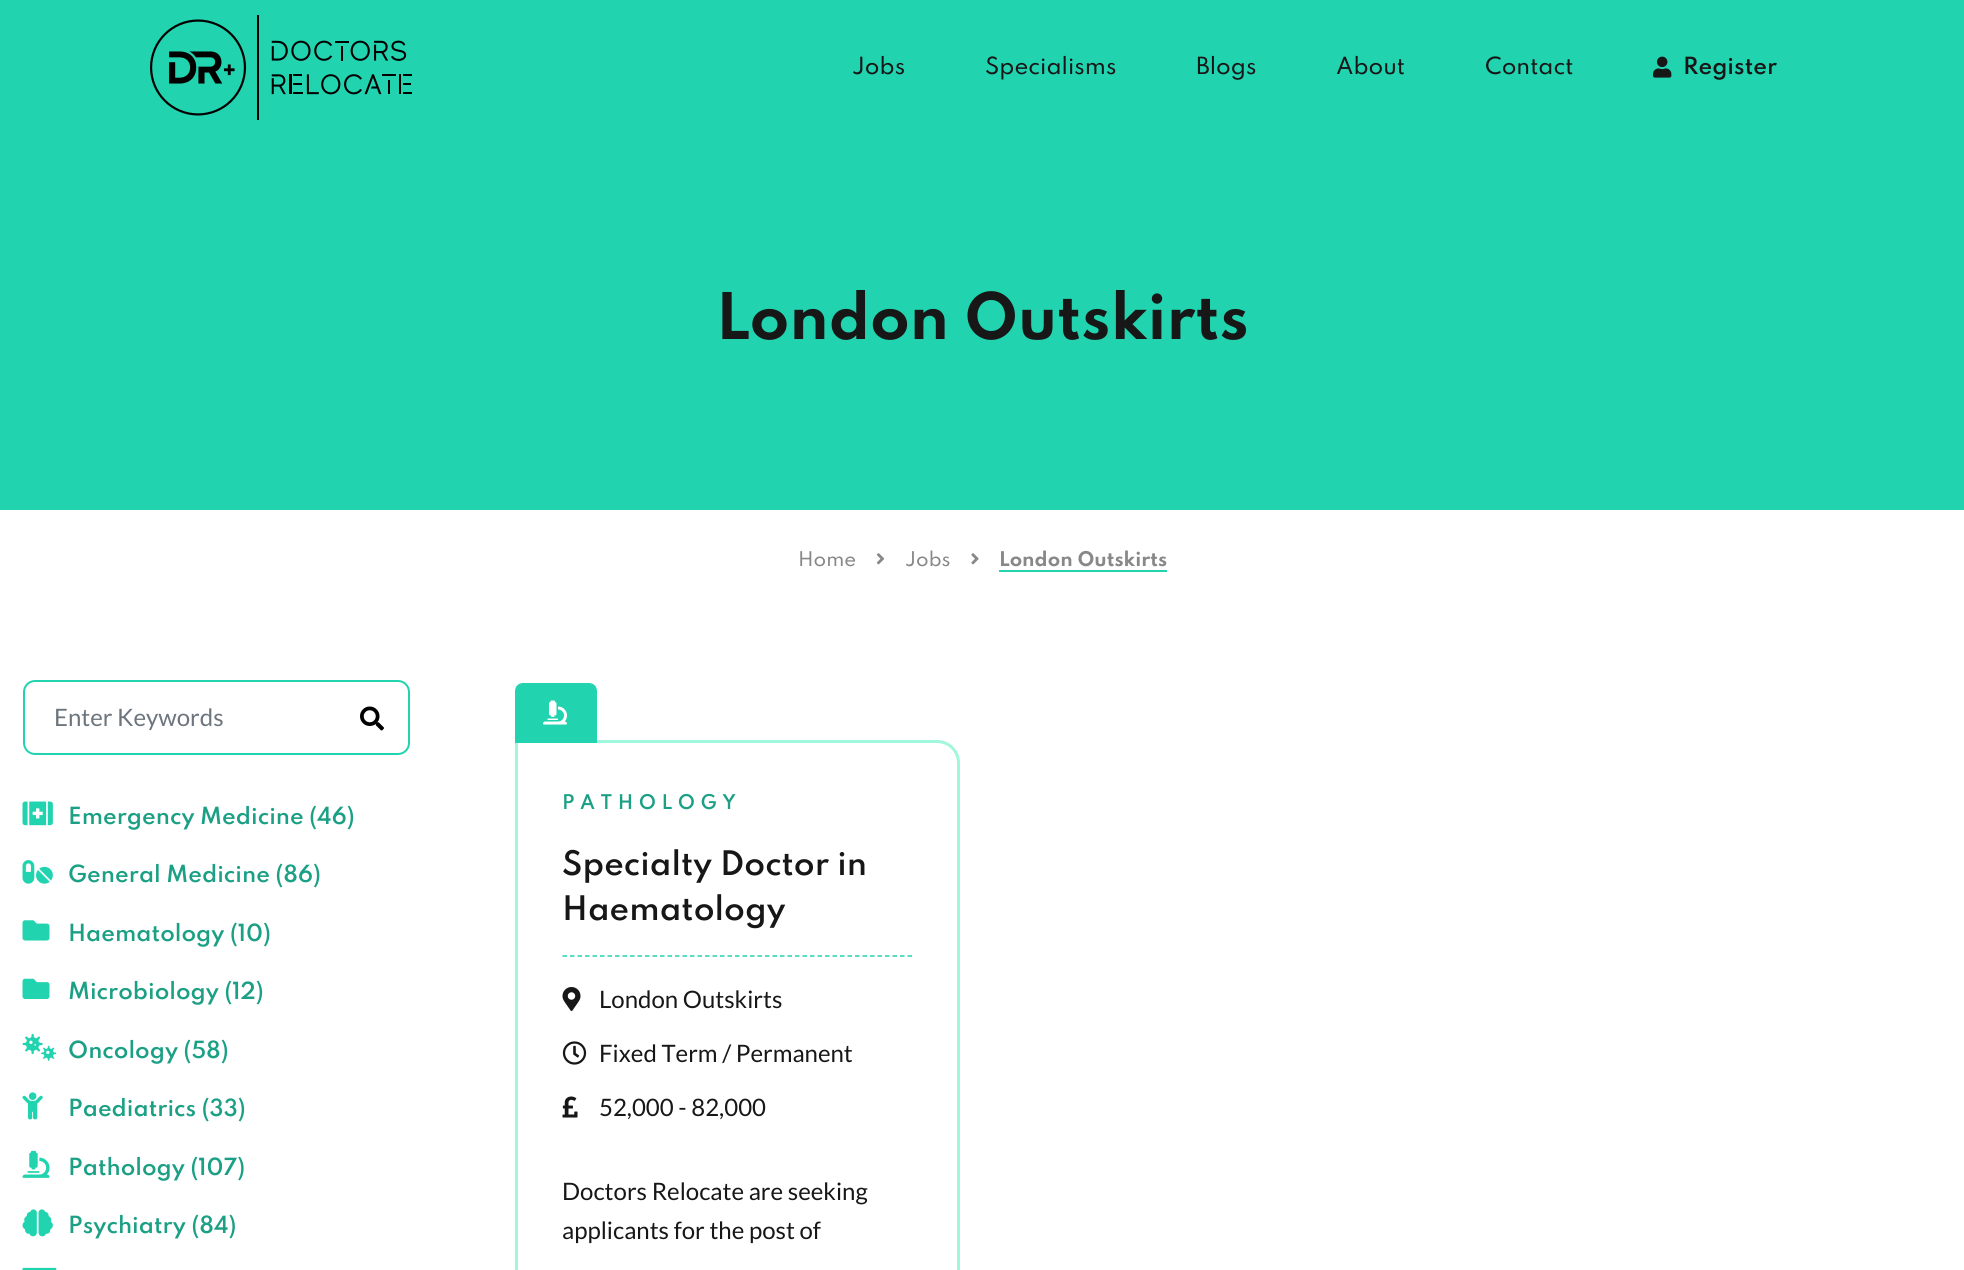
import math
import cairo

surface = cairo.ImageSurface(cairo.FORMAT_RGB24, 1964, 1270)
cr = cairo.Context(surface)
options = cairo.FontOptions()
options.set_hint_metrics(cairo.HINT_METRICS_OFF)
options.set_hint_style(cairo.HINT_STYLE_NONE)
cr.set_font_options(options)
cr.set_miter_limit(4)


def rgb(code):
    cr.set_source_rgb(*(v / 255 for v in bytes.fromhex(code[-6:])))


def tracked(x, y, s, letter, word):
    cr.move_to(x, y)
    for ch in s:
        cr.show_text(ch)
        cr.rel_move_to(letter + word * (ch == ' '), 0)


def rrect(x, y, w, h, r):
    cr.new_sub_path()
    for i, (u, v) in enumerate([(x + w - r, y + h - r), (x + r, y + h - r), (x + r, y + r), (x + w - r, y + r)]):
        cr.arc(u, v, r, i * math.pi / 2, (i + 1) * math.pi / 2)
    cr.close_path()


def image(path, x, y, w, h):
    cr.save()
    cr.set_source_surface(cairo.ImageSurface.create_from_png(path), x, y)
    cr.rectangle(x, y, w, h)
    cr.fill()
    cr.restore()


rgb("#ffffff")
cr.paint()
rgb("#22d3af")
cr.rectangle(0, 0, 1964, 510)
cr.fill()
image("img/1.png", 150, 15, 262, 105)
image("img/2.png", 1653, 56, 19, 22)
image("img/3.png", 876, 553, 9, 12)
image("img/4.png", 971, 553, 8, 12)
cr.rectangle(999, 570, 168, 2)
cr.fill()
rrect(24, 681, 385, 73, 11)
cr.stroke()
image("img/5.png", 360, 706, 24, 25)
image("img/6.png", 22, 801, 31, 25)
image("img/7.png", 22, 860, 31, 24)
image("img/8.png", 22, 920, 28, 21)
image("img/9.png", 22, 978, 28, 21)
image("img/10.png", 22, 1033, 35, 28)
image("img/11.png", 22, 1092, 21, 28)
image("img/12.png", 22, 1150, 28, 28)
image("img/13.png", 22, 1209, 31, 28)
image("img/14.png", 22, 1267, 35, 3)
cr.new_path()
cr.move_to(516.5, 741.5)
cr.line_to(937, 741.5)
cr.curve_to(949, 741.5, 958.5, 751, 958.5, 763)
cr.line_to(958.5, 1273)
cr.curve_to(958.5, 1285, 949, 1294.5, 937, 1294.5)
cr.line_to(538, 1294.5)
cr.curve_to(526, 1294.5, 516.5, 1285, 516.5, 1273)
cr.close_path()
rgb("#a1f7dc")
cr.set_line_width(3)
cr.stroke()
rgb("#22d3af")
cr.new_path()
cr.move_to(523, 683)
cr.line_to(589, 683)
cr.curve_to(593.5, 683, 597, 686.5, 597, 691)
cr.line_to(597, 743)
cr.line_to(515, 743)
cr.line_to(515, 691)
cr.curve_to(515, 686.5, 518.5, 683, 523, 683)
cr.close_path()
cr.fill()
image("img/15.png", 543, 700, 24, 25)
cr.new_path()
cr.move_to(562.5, 956)
cr.line_to(912, 956)
cr.set_line_width(1.5)
cr.set_dash([4.5, 3])
cr.stroke()
image("img/16.png", 562, 987, 19, 24)
image("img/17.png", 562, 1041, 25, 24)
image("img/18.png", 562, 1096, 16, 22)
cr.select_font_face("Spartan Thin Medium")
cr.set_font_size(21)
rgb("#171717")
for x, y, s in [
    (852, 74, "Jobs"),
    (985, 74, "Specialisms"),
    (1196, 74, "Blogs"),
    (1336, 74, "About"),
    (1485, 74, "Contact"),
]:
    cr.move_to(x, y)
    cr.show_text(s)
cr.select_font_face("Spartan Thin SemiBold")
cr.move_to(1683, 74)
cr.show_text("Register")
cr.select_font_face("Spartan Thin", cairo.FONT_SLANT_NORMAL, cairo.FONT_WEIGHT_BOLD)
cr.set_font_size(57)
cr.move_to(716, 339)
cr.show_text("London Outskirts")
cr.select_font_face("Spartan Thin Medium")
cr.set_font_size(18)
rgb("#888888")
cr.move_to(798, 566)
cr.show_text("Home")
cr.move_to(905, 566)
cr.show_text("Jobs")
cr.select_font_face("Spartan Thin", cairo.FONT_SLANT_NORMAL, cairo.FONT_WEIGHT_BOLD)
cr.move_to(999, 566)
cr.show_text("London Outskirts")
cr.select_font_face("Lato")
cr.set_font_size(24)
rgb("#6c757d")
cr.move_to(54, 726)
cr.show_text("Enter Keywords")
cr.select_font_face("Spartan Thin SemiBold")
cr.set_font_size(21)
rgb("#1ca085")
for x, y, s in [
    (68, 824, "Emergency Medicine (46)"),
    (68, 882, "General Medicine (86)"),
    (68, 941, "Haematology (10)"),
    (68, 999, "Microbiology (12)"),
    (68, 1058, "Oncology (58)"),
    (68, 1116, "Paediatrics (33)"),
    (68, 1175, "Pathology (107)"),
    (68, 1233, "Psychiatry (84)"),
]:
    cr.move_to(x, y)
    cr.show_text(s)
cr.set_font_size(18)
tracked(562, 809, "PATHOLOGY", 5.5, 0)
cr.set_font_size(30)
rgb("#171717")
cr.move_to(562, 875)
cr.show_text("Specialty Doctor in")
cr.move_to(562, 920)
cr.show_text("Haematology")
cr.select_font_face("Lato")
cr.set_font_size(24)
for x, y, s in [
    (599, 1008, "London Outskirts"),
    (599, 1062, "Fixed Term / Permanent"),
    (599, 1116, "52,000 - 82,000"),
    (562, 1200, "Doctors Relocate are seeking"),
    (562, 1239, "applicants for the post of"),
]:
    cr.move_to(x, y)
    cr.show_text(s)
surface.write_to_png("page.png")
